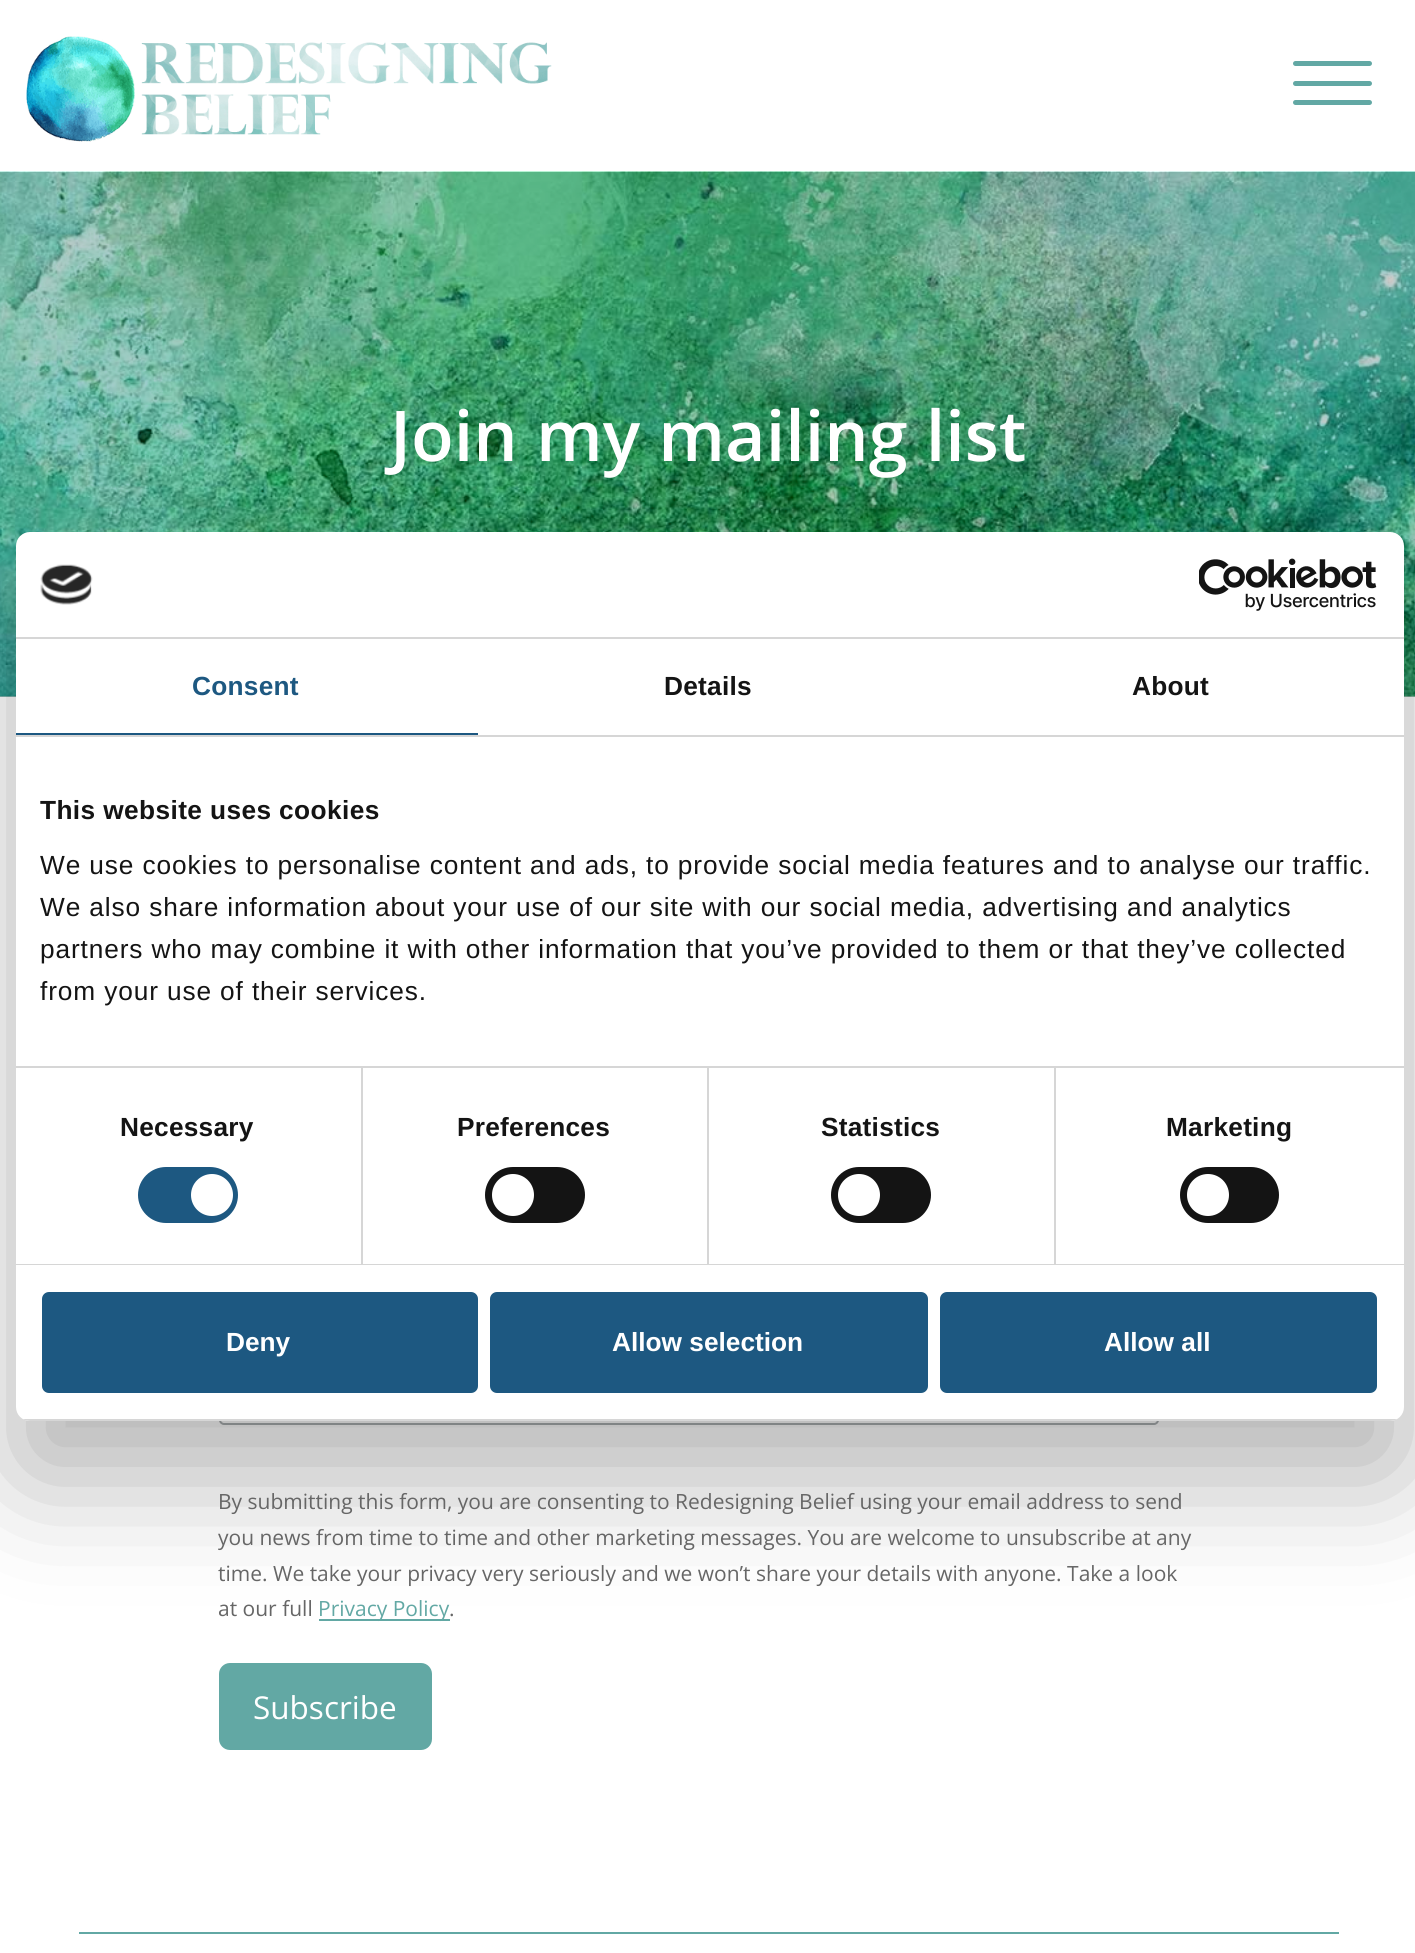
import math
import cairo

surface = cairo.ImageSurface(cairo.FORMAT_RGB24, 1415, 1953)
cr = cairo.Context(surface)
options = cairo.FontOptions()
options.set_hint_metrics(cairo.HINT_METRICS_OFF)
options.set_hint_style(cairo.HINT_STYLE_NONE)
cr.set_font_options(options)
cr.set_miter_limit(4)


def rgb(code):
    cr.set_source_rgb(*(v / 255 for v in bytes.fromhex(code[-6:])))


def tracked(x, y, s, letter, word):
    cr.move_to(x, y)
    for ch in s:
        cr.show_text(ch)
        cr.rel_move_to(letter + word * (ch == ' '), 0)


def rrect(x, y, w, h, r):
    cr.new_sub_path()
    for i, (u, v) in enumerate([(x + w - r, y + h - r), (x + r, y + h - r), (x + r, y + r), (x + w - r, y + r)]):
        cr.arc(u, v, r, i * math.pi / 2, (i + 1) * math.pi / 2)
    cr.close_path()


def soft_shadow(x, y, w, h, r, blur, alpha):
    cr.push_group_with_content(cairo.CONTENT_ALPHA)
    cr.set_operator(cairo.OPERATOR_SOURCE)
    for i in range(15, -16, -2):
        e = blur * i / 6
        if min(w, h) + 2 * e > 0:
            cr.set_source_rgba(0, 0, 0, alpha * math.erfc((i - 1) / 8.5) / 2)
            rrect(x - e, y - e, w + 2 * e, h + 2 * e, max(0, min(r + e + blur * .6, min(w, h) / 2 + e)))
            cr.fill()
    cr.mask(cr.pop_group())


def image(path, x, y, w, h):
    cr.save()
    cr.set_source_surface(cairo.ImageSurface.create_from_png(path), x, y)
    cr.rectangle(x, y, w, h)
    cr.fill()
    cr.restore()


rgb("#ffffff")
cr.paint()
image("img/1.png", 26, 36, 526, 106)
rgb("#62a8a4")
rrect(1293, 61, 79, 5, 2.5)
cr.fill()
rrect(1293, 81, 79, 5, 2.5)
cr.fill()
rrect(1293, 100, 79, 5, 2.5)
cr.fill()
image("img/2.png", 0, 171, 1415, 526)
cr.set_source_rgba(0, 0, 0, 0.2)
cr.rectangle(0, 172, 1415, 525)
cr.fill()
rrect(220, 1338, 938, 86, 4)
rgb("#abb0b2")
cr.stroke()
rgb("#62a8a4")
cr.rectangle(319, 1619, 131, 2)
cr.fill()
rrect(219, 1663, 213, 87, 11)
cr.fill()
rgb("#000000")
soft_shadow(16, 588, 1388, 889, 14, 59.5, 0.3)
rgb("#ffffff")
rrect(16, 532, 1388, 889, 14)
cr.fill()
rgb("#d6d6d6")
cr.rectangle(16, 637, 1388, 2)
cr.fill()
image("img/3.png", 40, 564, 53, 41)
image("img/4.png", 1199, 558, 178, 53)
for x, y, w, h, color in [
    (16, 735, 1388, 2, "#d6d6d6"),
    (16, 733, 462, 2, "#1d5881"),
    (16, 1066, 1388, 2, "#d6d6d6"),
    (16, 1264, 1388, 1, "#d6d6d6"),
    (361, 1068, 2, 196, "#d6d6d6"),
]:
    rgb(color)
    cr.rectangle(x, y, w, h)
    cr.fill()
rgb("#1d5881")
rrect(138, 1167, 100, 56, 28)
cr.fill()
rgb("#ffffff")
cr.arc(212, 1195, 21, 0, 2 * math.pi)
cr.fill()
rgb("#d6d6d6")
cr.rectangle(707, 1068, 2, 196)
cr.fill()
rgb("#141414")
rrect(485, 1167, 100, 56, 28)
cr.fill()
rgb("#ffffff")
cr.arc(513, 1195, 21, 0, 2 * math.pi)
cr.fill()
rgb("#d6d6d6")
cr.rectangle(1054, 1068, 2, 196)
cr.fill()
rgb("#141414")
rrect(831, 1167, 100, 56, 28)
cr.fill()
rgb("#ffffff")
cr.arc(859, 1195, 21, 0, 2 * math.pi)
cr.fill()
rgb("#141414")
rrect(1180, 1167, 99, 56, 28)
cr.fill()
rgb("#ffffff")
cr.arc(1208, 1195, 21, 0, 2 * math.pi)
cr.fill()
cr.save()
rrect(16, 532, 1388, 889, 14)
cr.clip()
rgb("#d6d6d6")
cr.rectangle(16, 1419, 1388, 2)
cr.fill()
cr.restore()
rgb("#1d5881")
rrect(44, 1294, 432, 97, 5)
cr.fill_preserve()
cr.set_line_width(4)
cr.stroke()
rrect(492, 1294, 434, 97, 5)
cr.fill_preserve()
cr.stroke()
rrect(942, 1294, 433, 97, 5)
cr.fill_preserve()
cr.stroke()
rgb("#62a8a4")
cr.rectangle(79, 1932, 1260, 2)
cr.fill()
cr.select_font_face("Open Sans SemiBold")
cr.set_font_size(70)
rgb("#ffffff")
cr.move_to(390, 461)
cr.show_text("Join my mailing list")
cr.select_font_face("Open Sans")
cr.set_font_size(21)
rgb("#666666")
for x, y, s in [
    (218, 1509, "By submitting this form, you are consenting to Redesigning Belief using your email address to send"),
    (218, 1545, "you news from time to time and other marketing messages. You are welcome to unsubscribe at any"),
    (218, 1581, "time. We take your privacy very seriously and we won’t share your details with anyone. Take a look"),
    (218, 1616, "at our full"),
]:
    cr.move_to(x, y)
    cr.show_text(s)
rgb("#62a8a4")
cr.move_to(318, 1616)
cr.show_text("Privacy Policy")
rgb("#666666")
cr.move_to(449, 1616)
cr.show_text(".")
cr.set_font_size(31.5)
rgb("#ffffff")
cr.move_to(253, 1719)
cr.show_text("Subscribe")
cr.select_font_face("Liberation Sans", cairo.FONT_SLANT_NORMAL, cairo.FONT_WEIGHT_BOLD)
cr.set_font_size(26.25)
rgb("#1d5881")
tracked(192, 695, "Consent", 0.25, 0)
rgb("#141414")
tracked(664, 695, "Details", 0.25, 0)
tracked(1132, 695, "About", 0.25, 0)
tracked(40, 819, "This website uses cookies", 0.4, 0)
cr.select_font_face("Liberation Sans")
for x, y, s in [
    (40, 874, "We use cookies to personalise content and ads, to provide social media features and to analyse our traffic."),
    (40, 916, "We also share information about your use of our site with our social media, advertising and analytics"),
    (40, 958, "partners who may combine it with other information that you’ve provided to them or that they’ve collected"),
    (40, 1000, "from your use of their services."),
]:
    tracked(x, y, s, 0.88, 0)
cr.select_font_face("Liberation Sans", cairo.FONT_SLANT_NORMAL, cairo.FONT_WEIGHT_BOLD)
for x, y, s in [
    (120, 1136, "Necessary"),
    (457, 1136, "Preferences"),
    (821, 1136, "Statistics"),
    (1166, 1136, "Marketing"),
]:
    tracked(x, y, s, 0.25, 0)
rgb("#ffffff")
for x, y, s in [
    (226, 1351, "Deny"),
    (612, 1351, "Allow selection"),
    (1104, 1351, "Allow all"),
]:
    cr.move_to(x, y)
    cr.show_text(s)
surface.write_to_png("page.png")
